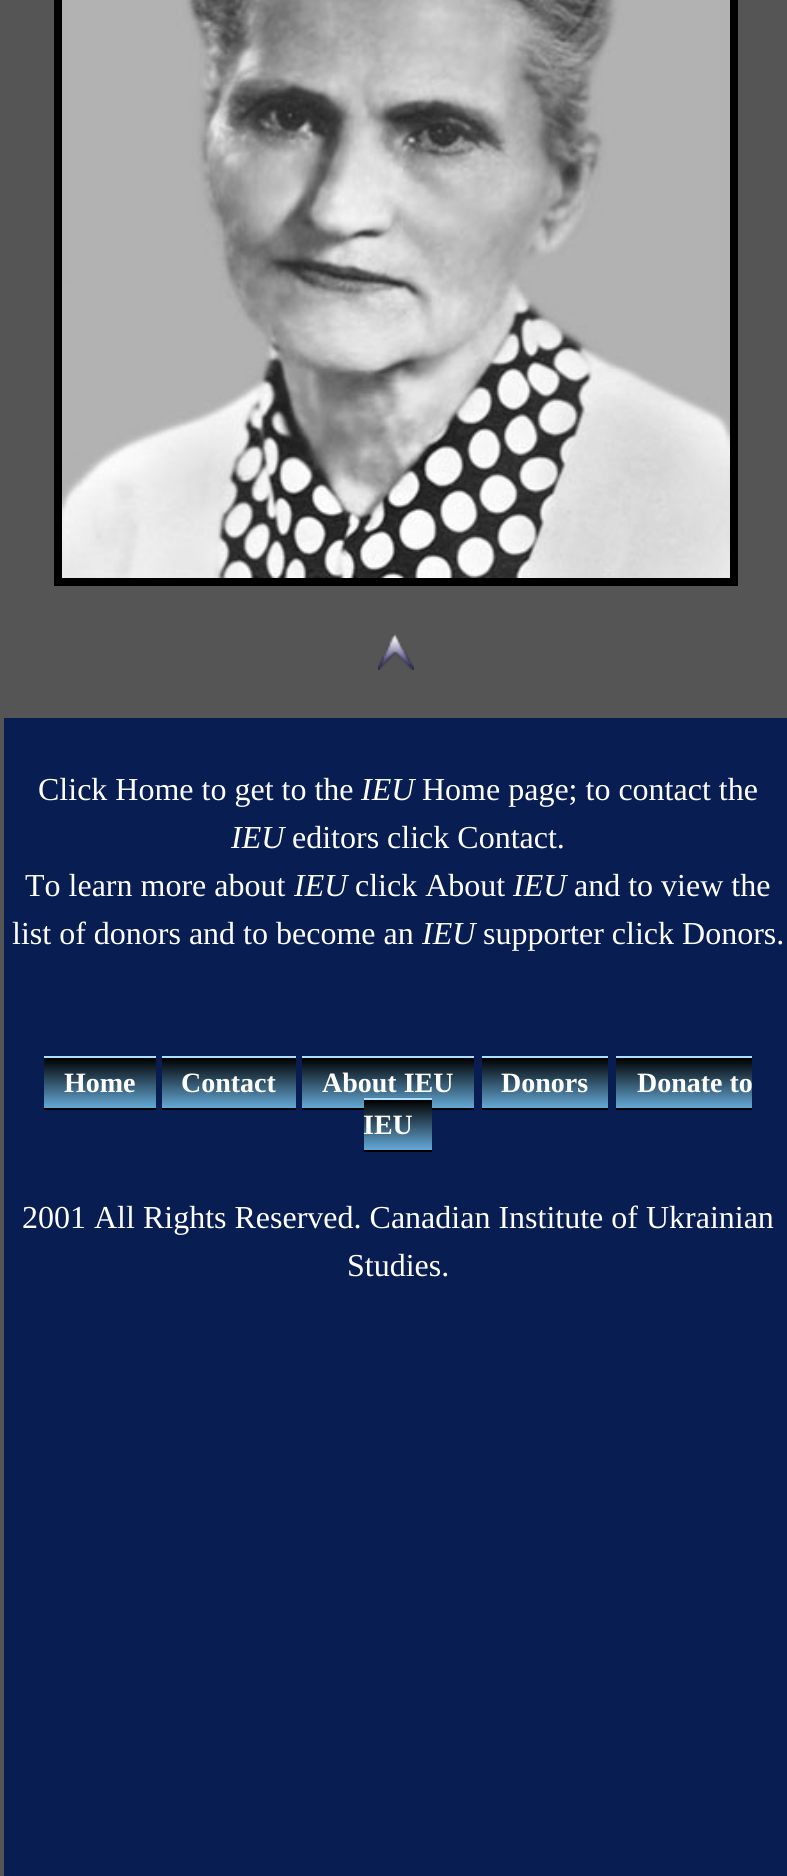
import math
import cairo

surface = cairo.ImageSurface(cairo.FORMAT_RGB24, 787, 1876)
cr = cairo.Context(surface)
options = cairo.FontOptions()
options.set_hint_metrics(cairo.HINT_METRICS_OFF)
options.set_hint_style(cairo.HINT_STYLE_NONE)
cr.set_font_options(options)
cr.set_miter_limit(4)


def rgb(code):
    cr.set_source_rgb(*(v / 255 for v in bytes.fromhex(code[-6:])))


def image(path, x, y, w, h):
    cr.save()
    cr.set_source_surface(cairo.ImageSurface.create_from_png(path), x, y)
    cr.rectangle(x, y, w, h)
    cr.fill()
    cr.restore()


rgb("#555555")
cr.paint()
cr.rectangle(58, -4, 676, 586)
rgb("#000000")
cr.set_line_width(8)
cr.stroke()
image("img/1.png", 62, 0, 668, 578)
image("img/2.png", 378, 634, 36, 36)
rgb("#081d52")
cr.rectangle(4, 718, 783, 1158)
cr.fill()
rgb("#000000")
cr.rectangle(44, 1108, 112, 2)
cr.fill()
gradient = cairo.LinearGradient(100, 1058, 100, 1108)
gradient.add_color_stop_rgba(0, 0, 0, 0, 1)
gradient.add_color_stop_rgba(1, 0.396, 0.663, 0.843, 1)
cr.set_source(gradient)
cr.rectangle(44, 1058, 112, 50)
cr.fill()
rgb("#abdfff")
cr.rectangle(44, 1056, 112, 2)
cr.fill()
rgb("#000000")
cr.rectangle(162, 1108, 134, 2)
cr.fill()
gradient = cairo.LinearGradient(229, 1058, 229, 1108)
gradient.add_color_stop_rgba(0, 0, 0, 0, 1)
gradient.add_color_stop_rgba(1, 0.396, 0.663, 0.843, 1)
cr.set_source(gradient)
cr.rectangle(162, 1058, 134, 50)
cr.fill()
rgb("#abdfff")
cr.rectangle(162, 1056, 134, 2)
cr.fill()
rgb("#000000")
cr.rectangle(302, 1108, 172, 2)
cr.fill()
gradient = cairo.LinearGradient(388, 1058, 388, 1108)
gradient.add_color_stop_rgba(0, 0, 0, 0, 1)
gradient.add_color_stop_rgba(1, 0.396, 0.663, 0.843, 1)
cr.set_source(gradient)
cr.rectangle(302, 1058, 172, 50)
cr.fill()
rgb("#abdfff")
cr.rectangle(302, 1056, 172, 2)
cr.fill()
rgb("#000000")
cr.rectangle(482, 1108, 126, 2)
cr.fill()
gradient = cairo.LinearGradient(545, 1058, 545, 1108)
gradient.add_color_stop_rgba(0, 0, 0, 0, 1)
gradient.add_color_stop_rgba(1, 0.396, 0.663, 0.843, 1)
cr.set_source(gradient)
cr.rectangle(482, 1058, 126, 50)
cr.fill()
rgb("#abdfff")
cr.rectangle(482, 1056, 126, 2)
cr.fill()
rgb("#000000")
cr.rectangle(616, 1108, 136, 2)
cr.fill()
gradient = cairo.LinearGradient(684, 1058, 684, 1108)
gradient.add_color_stop_rgba(0, 0, 0, 0, 1)
gradient.add_color_stop_rgba(1, 0.396, 0.663, 0.843, 1)
cr.set_source(gradient)
cr.rectangle(616, 1058, 136, 50)
cr.fill()
rgb("#abdfff")
cr.rectangle(616, 1056, 136, 2)
cr.fill()
rgb("#000000")
cr.rectangle(364, 1150, 68, 2)
cr.fill()
gradient = cairo.LinearGradient(398, 1100, 398, 1150)
gradient.add_color_stop_rgba(0, 0, 0, 0, 1)
gradient.add_color_stop_rgba(1, 0.396, 0.663, 0.843, 1)
cr.set_source(gradient)
cr.rectangle(364, 1100, 68, 50)
cr.fill()
rgb("#abdfff")
cr.rectangle(364, 1098, 68, 2)
cr.fill()
cr.select_font_face("Liberation Serif")
cr.set_font_size(32)
rgb("#ffffff")
cr.move_to(38, 800)
cr.show_text("Click Home to get to the")
cr.select_font_face("Liberation Serif", cairo.FONT_SLANT_ITALIC)
cr.move_to(361, 800)
cr.show_text("IEU")
cr.select_font_face("Liberation Serif")
cr.move_to(422, 800)
cr.show_text("Home page; to contact the")
cr.select_font_face("Liberation Serif", cairo.FONT_SLANT_ITALIC)
cr.move_to(231, 848)
cr.show_text("IEU")
cr.select_font_face("Liberation Serif")
cr.move_to(292, 848)
cr.show_text("editors click Contact.")
cr.move_to(25, 896)
cr.show_text("To learn more about")
cr.select_font_face("Liberation Serif", cairo.FONT_SLANT_ITALIC)
cr.move_to(294, 896)
cr.show_text("IEU")
cr.select_font_face("Liberation Serif")
cr.move_to(355, 896)
cr.show_text("click About")
cr.select_font_face("Liberation Serif", cairo.FONT_SLANT_ITALIC)
cr.move_to(513, 896)
cr.show_text("IEU")
cr.select_font_face("Liberation Serif")
cr.move_to(574, 896)
cr.show_text("and to view the")
cr.move_to(12, 944)
cr.show_text("list of donors and to become an")
cr.select_font_face("Liberation Serif", cairo.FONT_SLANT_ITALIC)
cr.move_to(422, 944)
cr.show_text("IEU")
cr.select_font_face("Liberation Serif")
cr.move_to(483, 944)
cr.show_text("supporter click Donors.")
cr.select_font_face("Liberation Serif", cairo.FONT_SLANT_NORMAL, cairo.FONT_WEIGHT_BOLD)
cr.set_font_size(28)
for x, y, s in [
    (64, 1092, "Home"),
    (181, 1092, "Contact"),
    (322, 1092, "About IEU"),
    (501, 1092, "Donors"),
    (637, 1092, "Donate to"),
    (363, 1134, "IEU"),
]:
    cr.move_to(x, y)
    cr.show_text(s)
cr.select_font_face("Liberation Serif")
cr.set_font_size(32)
cr.move_to(22, 1228)
cr.show_text("2001 All Rights Reserved. Canadian Institute of Ukrainian")
cr.move_to(347, 1276)
cr.show_text("Studies.")
surface.write_to_png("page.png")
